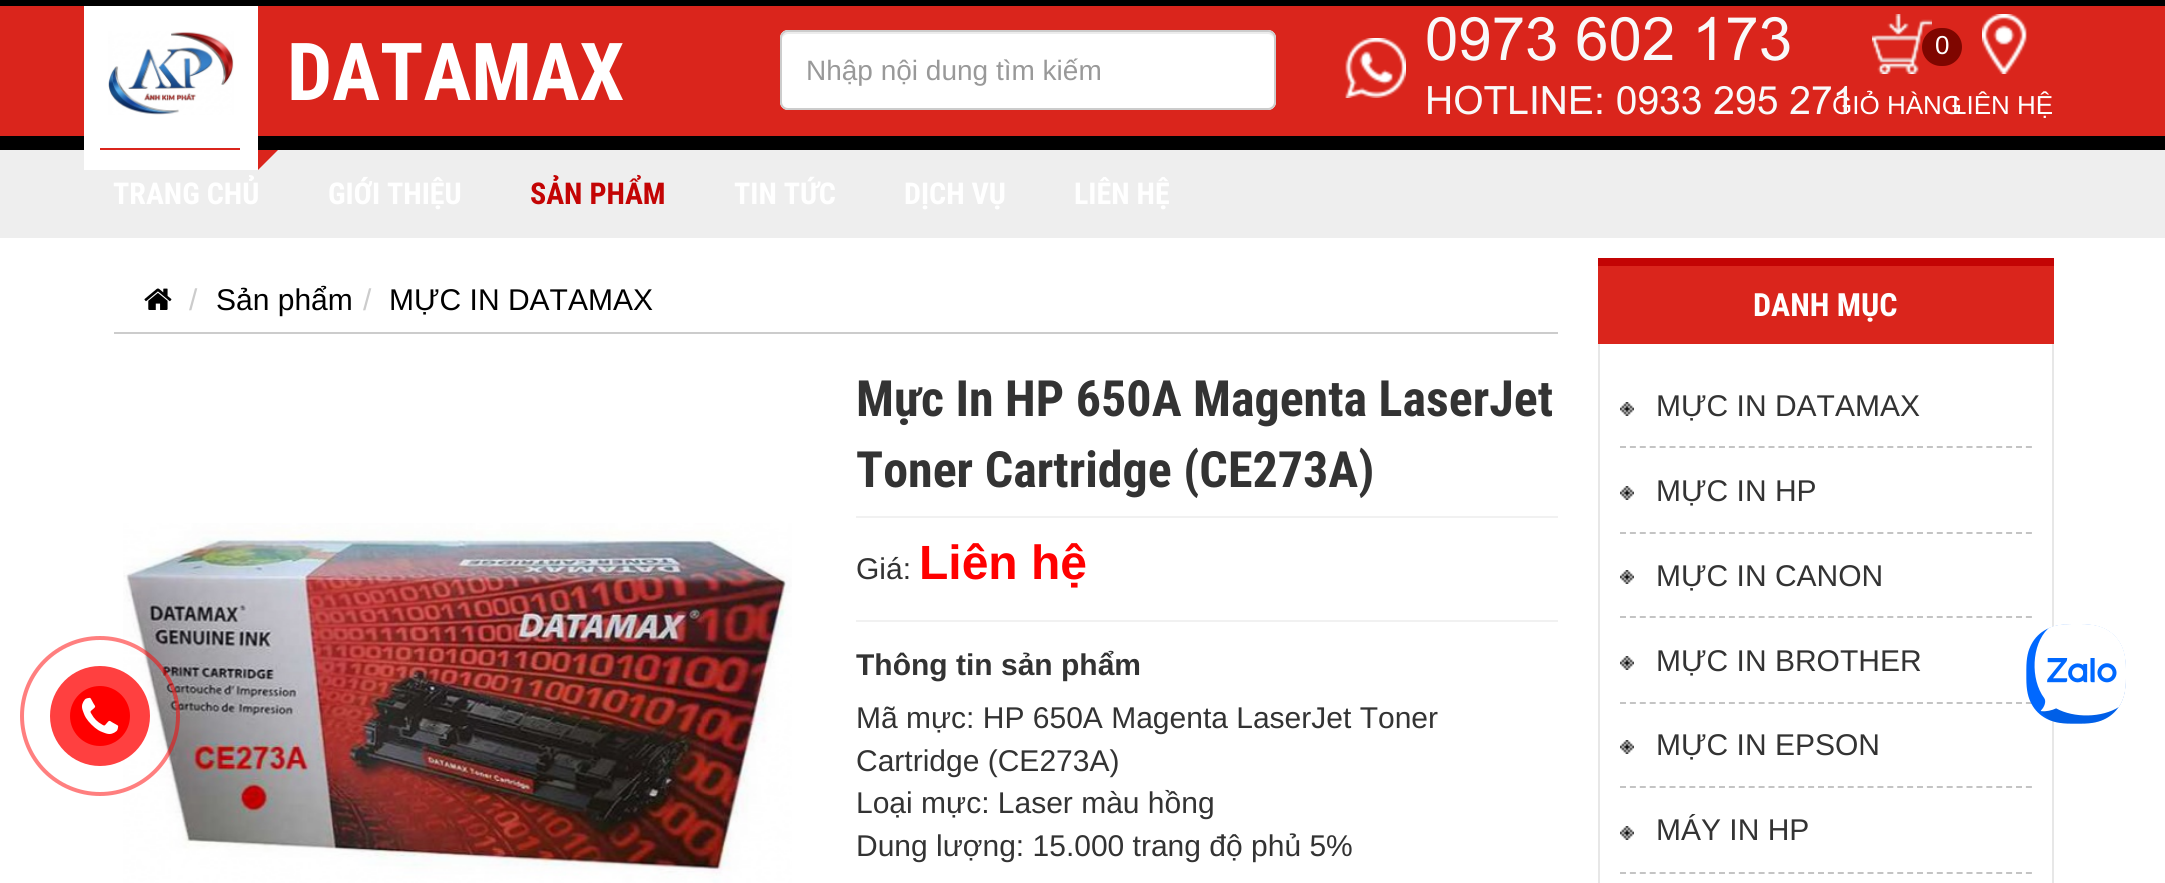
import math
import cairo

surface = cairo.ImageSurface(cairo.FORMAT_RGB24, 2165, 883)
cr = cairo.Context(surface)
options = cairo.FontOptions()
options.set_hint_metrics(cairo.HINT_METRICS_OFF)
options.set_hint_style(cairo.HINT_STYLE_NONE)
cr.set_font_options(options)
cr.set_miter_limit(4)


def rgb(code):
    cr.set_source_rgb(*(v / 255 for v in bytes.fromhex(code[-6:])))


def rrect(x, y, w, h, r):
    cr.new_sub_path()
    for i, (u, v) in enumerate([(x + w - r, y + h - r), (x + r, y + h - r), (x + r, y + r), (x + w - r, y + r)]):
        cr.arc(u, v, r, i * math.pi / 2, (i + 1) * math.pi / 2)
    cr.close_path()


def image(path, x, y, w, h):
    cr.save()
    cr.set_source_surface(cairo.ImageSurface.create_from_png(path), x, y)
    cr.rectangle(x, y, w, h)
    cr.fill()
    cr.restore()


rgb("#ffffff")
cr.paint()
for x, y, w, h, color in [
    (0, 6, 2165, 130, "#da251c"),
    (0, 0, 2165, 6, "#000000"),
    (0, 136, 2165, 14, "#000000"),
    (0, 150, 2165, 88, "#eeeeee"),
    (84, 6, 174, 164, "#ffffff"),
]:
    rgb(color)
    cr.rectangle(x, y, w, h)
    cr.fill()
image("img/1.png", 108, 31, 126, 84)
rgb("#da251c")
cr.rectangle(100, 148, 140, 2)
cr.fill()
cr.new_path()
cr.move_to(258, 150)
cr.line_to(278, 150)
cr.line_to(258, 170)
cr.close_path()
cr.fill()
rgb("#ffffff")
rrect(780, 30, 496, 80, 8)
cr.fill()
rgb("#ececec")
cr.new_path()
cr.move_to(788, 34)
cr.line_to(1268, 34)
cr.curve_to(1271, 34, 1274, 37, 1274, 40)
cr.curve_to(1274, 36, 1273, 32, 1268, 32)
cr.line_to(788, 32)
cr.curve_to(783, 32, 782, 36, 782, 40)
cr.curve_to(782, 37, 785, 34, 788, 34)
cr.close_path()
cr.fill()
rrect(781, 31, 494, 78, 7)
rgb("#cccccc")
cr.stroke()
image("img/2.png", 1345, 38, 61, 60)
image("img/3.png", 1982, 14, 45, 60)
rgb("#7f0600")
rrect(1922, 28, 40, 38, 19)
cr.fill()
image("img/4.png", 1872, 14, 60, 60)
image("img/7.png", 123, 523, 669, 360)
cr.arc(100, 716, 78, 0, 2 * math.pi)
cr.set_source_rgba(1, 0, 0, 0.5)
cr.set_line_width(4)
cr.stroke()
rgb("#ff4040")
cr.arc(100, 716, 50, 0, 2 * math.pi)
cr.fill()
rgb("#ff0000")
cr.arc(100, 716, 30, 0, 2 * math.pi)
cr.fill()
image("img/5.png", 82, 697, 37, 37)
rgb("#cccccc")
cr.rectangle(114, 332, 1444, 2)
cr.fill()
image("img/6.png", 144, 288, 28, 22)
for x, y, w, h, color in [
    (856, 516, 702, 2, "#f1f1f1"),
    (856, 620, 702, 2, "#f1f1f1"),
    (1598, 266, 456, 78, "#da251c"),
    (1598, 258, 456, 8, "#c30404"),
    (2052, 344, 2, 539, "#e7e7e7"),
    (1598, 344, 2, 539, "#e7e7e7"),
]:
    rgb(color)
    cr.rectangle(x, y, w, h)
    cr.fill()
cr.new_path()
cr.move_to(1620, 447)
cr.line_to(2032, 447)
rgb("#c4c4c4")
cr.set_line_width(2)
cr.set_dash([6, 3.9])
cr.stroke()
image("img/8.png", 1620, 402, 14, 14)
cr.new_path()
cr.move_to(1620, 533)
cr.line_to(2032, 533)
cr.stroke()
image("img/8.png", 1620, 486, 14, 14)
cr.new_path()
cr.move_to(1620, 617)
cr.line_to(2032, 617)
cr.stroke()
image("img/8.png", 1620, 570, 14, 14)
cr.new_path()
cr.move_to(1620, 703)
cr.line_to(2032, 703)
cr.stroke()
image("img/8.png", 1620, 656, 14, 14)
cr.new_path()
cr.move_to(1620, 787)
cr.line_to(2032, 787)
cr.stroke()
image("img/8.png", 1620, 740, 14, 14)
cr.new_path()
cr.move_to(1620, 873)
cr.line_to(2032, 873)
cr.stroke()
image("img/8.png", 1620, 826, 14, 14)
image("img/9.png", 2026, 624, 100, 100)
cr.select_font_face("Roboto Condensed", cairo.FONT_SLANT_NORMAL, cairo.FONT_WEIGHT_BOLD)
cr.set_font_size(80)
rgb("#ffffff")
cr.move_to(287, 100)
cr.show_text("DATAMAX")
cr.select_font_face("Liberation Sans")
cr.set_font_size(28)
rgb("#999999")
cr.move_to(806, 80)
cr.show_text("Nhập nội dung tìm kiếm")
cr.select_font_face("Arial")
cr.set_font_size(60)
rgb("#f9f9f9")
cr.move_to(1425, 60)
cr.show_text("0973 602 173")
cr.select_font_face("Liberation Sans")
cr.set_font_size(26)
rgb("#ffffff")
for x, y, s in [
    (1935, 54, "0"),
    (1832, 114, "GIỎ HÀNG"),
    (1952, 114, "LIÊN HỆ"),
]:
    cr.move_to(x, y)
    cr.show_text(s)
cr.select_font_face("Arial")
cr.set_font_size(39)
rgb("#f9f9f9")
cr.move_to(1425, 114)
cr.show_text("HOTLINE: 0933 295 271")
cr.select_font_face("Roboto Condensed", cairo.FONT_SLANT_NORMAL, cairo.FONT_WEIGHT_BOLD)
cr.set_font_size(30)
rgb("#ffffff")
cr.move_to(113, 204)
cr.show_text("TRANG CHỦ")
cr.move_to(328, 204)
cr.show_text("GIỚI THIỆU")
rgb("#c30404")
cr.move_to(530, 204)
cr.show_text("SẢN PHẨM")
rgb("#ffffff")
for x, y, s in [
    (734, 204, "TIN TỨC"),
    (904, 204, "DỊCH VỤ"),
    (1074, 204, "LIÊN HỆ"),
]:
    cr.move_to(x, y)
    cr.show_text(s)
cr.select_font_face("Liberation Sans")
rgb("#cccccc")
cr.move_to(189, 310)
cr.show_text("/")
rgb("#000000")
cr.move_to(216, 310)
cr.show_text("Sản phẩm")
rgb("#cccccc")
cr.move_to(363, 310)
cr.show_text("/")
rgb("#000000")
cr.move_to(389, 310)
cr.show_text("MỰC IN DATAMAX")
cr.select_font_face("Roboto Condensed", cairo.FONT_SLANT_NORMAL, cairo.FONT_WEIGHT_BOLD)
cr.set_font_size(50)
rgb("#333333")
cr.move_to(856, 416)
cr.show_text("Mực In HP 650A Magenta LaserJet")
cr.move_to(856, 487)
cr.show_text("Toner Cartridge (CE273A)")
cr.select_font_face("Liberation Sans")
cr.set_font_size(30)
cr.move_to(856, 579)
cr.show_text("Giá:")
cr.select_font_face("Liberation Sans", cairo.FONT_SLANT_NORMAL, cairo.FONT_WEIGHT_BOLD)
cr.set_font_size(48)
rgb("#ff0000")
cr.move_to(919, 579)
cr.show_text("Liên hệ")
cr.set_font_size(30)
rgb("#333333")
cr.move_to(856, 675)
cr.show_text("Thông tin sản phẩm")
cr.select_font_face("Liberation Sans")
for x, y, s in [
    (856, 728, "Mã mực: HP 650A Magenta LaserJet Toner"),
    (856, 771, "Cartridge (CE273A)"),
    (856, 813, "Loại mực: Laser màu hồng"),
    (856, 856, "Dung lượng: 15.000 trang độ phủ 5%"),
]:
    cr.move_to(x, y)
    cr.show_text(s)
cr.select_font_face("Roboto Condensed", cairo.FONT_SLANT_NORMAL, cairo.FONT_WEIGHT_BOLD)
cr.set_font_size(32)
rgb("#ffffff")
cr.move_to(1753, 316)
cr.show_text("DANH MỤC")
cr.select_font_face("Liberation Sans")
cr.set_font_size(30)
rgb("#333333")
for x, y, s in [
    (1656, 416, "MỰC IN DATAMAX"),
    (1656, 501, "MỰC IN HP"),
    (1656, 586, "MỰC IN CANON"),
    (1656, 671, "MỰC IN BROTHER"),
    (1656, 755, "MỰC IN EPSON"),
    (1656, 840, "MÁY IN HP"),
]:
    cr.move_to(x, y)
    cr.show_text(s)
surface.write_to_png("page.png")
